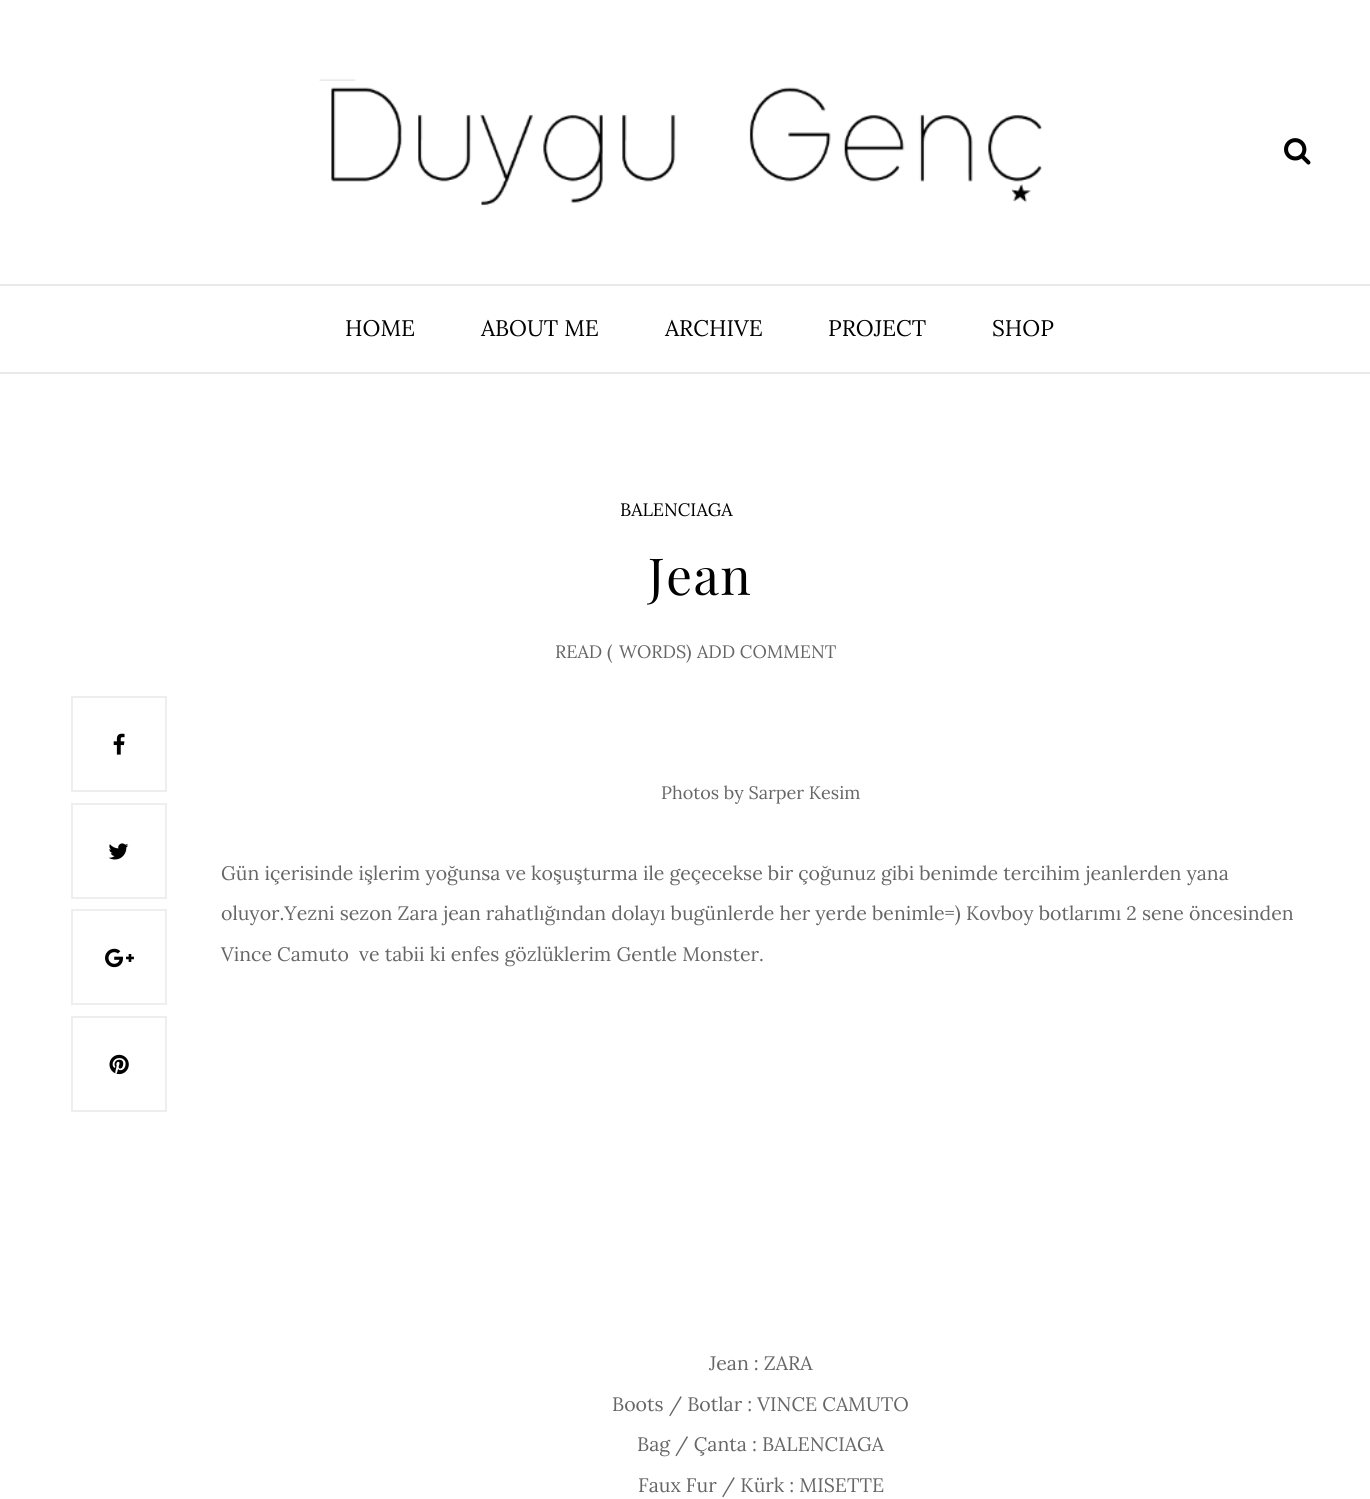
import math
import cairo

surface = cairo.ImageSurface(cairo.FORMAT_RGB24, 1370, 1499)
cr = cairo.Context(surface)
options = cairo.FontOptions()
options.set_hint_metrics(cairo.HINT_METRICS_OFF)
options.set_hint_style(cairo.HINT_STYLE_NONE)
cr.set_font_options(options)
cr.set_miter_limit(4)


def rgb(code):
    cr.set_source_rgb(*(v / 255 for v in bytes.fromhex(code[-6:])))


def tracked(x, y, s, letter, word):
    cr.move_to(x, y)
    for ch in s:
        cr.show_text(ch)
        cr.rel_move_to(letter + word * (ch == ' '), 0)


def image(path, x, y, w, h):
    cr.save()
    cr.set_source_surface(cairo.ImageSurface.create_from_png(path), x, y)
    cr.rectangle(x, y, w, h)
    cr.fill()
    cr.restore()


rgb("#ffffff")
cr.paint()
image("img/1.png", 319, 79, 724, 127)
image("img/2.png", 1284, 138, 27, 27)
rgb("#e9e9e9")
cr.rectangle(0, 284, 1370, 2)
cr.fill()
cr.rectangle(0, 372, 1370, 2)
cr.fill()
cr.rectangle(72, 697, 94, 94)
rgb("#eceeef")
cr.stroke()
image("img/3.png", 113, 733, 12, 22)
cr.rectangle(72, 804, 94, 94)
cr.stroke()
image("img/4.png", 108, 843, 21, 17)
cr.rectangle(72, 910, 94, 94)
cr.stroke()
image("img/5.png", 105, 948, 29, 20)
cr.rectangle(72, 1017, 94, 94)
cr.stroke()
image("img/6.png", 109, 1054, 20, 21)
cr.select_font_face("Lora")
cr.set_font_size(22.5)
rgb("#000000")
for x, y, s in [
    (345, 336, "HOME"),
    (481, 336, "ABOUT ME"),
    (665, 336, "ARCHIVE"),
    (828, 336, "PROJECT"),
    (992, 336, "SHOP"),
]:
    cr.move_to(x, y)
    cr.show_text(s)
cr.set_font_size(18)
cr.move_to(620, 516)
cr.show_text("BALENCIAGA")
cr.select_font_face("Playfair Display")
cr.set_font_size(51)
tracked(648, 595, "Jean", 1.5, 0)
cr.select_font_face("Lora")
cr.set_font_size(18)
rgb("#666666")
for x, y, s in [
    (555, 658, "READ ("),
    (619, 658, "WORDS)"),
    (697, 658, "ADD COMMENT"),
    (661, 799, "Photos by Sarper Kesim"),
]:
    cr.move_to(x, y)
    cr.show_text(s)
cr.set_font_size(19.5)
for x, y, s in [
    (221, 880, "Gün içerisinde işlerim yoğunsa ve koşuşturma ile geçecekse bir çoğunuz gibi benimde tercihim jeanlerden yana"),
    (221, 920, "oluyor.Yezni sezon Zara jean rahatlığından dolayı bugünlerde her yerde benimle=) Kovboy botlarımı 2 sene öncesinden"),
    (221, 961, "Vince Camuto  ve tabii ki enfes gözlüklerim Gentle Monster."),
    (709, 1370, "Jean : ZARA"),
    (612, 1411, "Boots / Botlar : VINCE CAMUTO"),
    (637, 1451, "Bag / Çanta : BALENCIAGA"),
    (638, 1492, "Faux Fur / Kürk : MISETTE"),
]:
    cr.move_to(x, y)
    cr.show_text(s)
surface.write_to_png("page.png")
